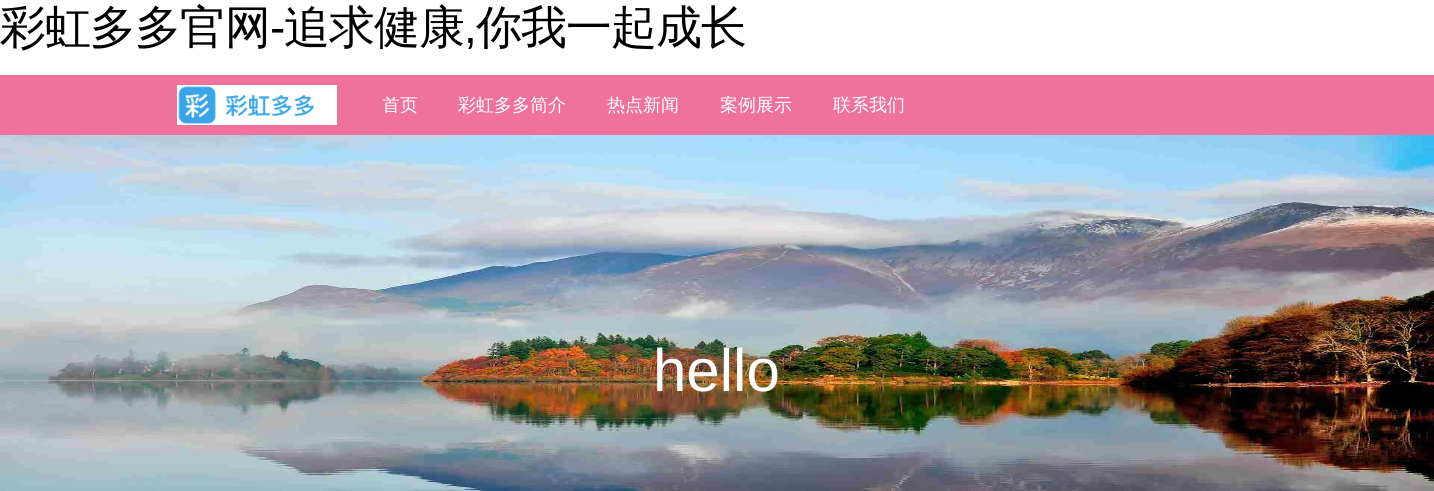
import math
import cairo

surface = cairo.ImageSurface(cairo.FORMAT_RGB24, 1434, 491)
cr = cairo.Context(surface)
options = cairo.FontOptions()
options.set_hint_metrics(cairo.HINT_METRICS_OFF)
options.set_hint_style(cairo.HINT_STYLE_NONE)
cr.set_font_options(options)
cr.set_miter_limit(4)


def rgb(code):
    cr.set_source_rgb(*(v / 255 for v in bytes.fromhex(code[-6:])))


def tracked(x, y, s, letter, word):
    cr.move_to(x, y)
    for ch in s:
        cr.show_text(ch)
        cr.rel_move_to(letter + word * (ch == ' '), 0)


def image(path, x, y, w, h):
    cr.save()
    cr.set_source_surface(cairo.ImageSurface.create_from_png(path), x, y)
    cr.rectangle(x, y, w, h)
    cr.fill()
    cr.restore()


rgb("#ffffff")
cr.paint()
rgb("#ee729c")
cr.rectangle(0, 75, 1434, 60)
cr.fill()
image("img/1.png", 177, 85, 160, 40)
image("img/2.png", 0, 135, 1434, 356)
cr.select_font_face("WenQuanYi Zen Hei Medium")
cr.set_font_size(46)
rgb("#000000")
tracked(0, 43, "彩虹多多官网", -1, 0)
cr.select_font_face("Liberation Sans")
tracked(270, 43, "-", -1, 0)
cr.select_font_face("WenQuanYi Zen Hei Medium")
tracked(284, 43, "追求健康", -1, 0)
tracked(476, 43, "你我一起成长", -1, 0)
cr.select_font_face("Liberation Sans")
tracked(464, 43, ",", -1, 0)
cr.select_font_face("WenQuanYi Zen Hei Medium")
cr.set_font_size(18)
rgb("#ffffff")
for x, y, s in [
    (382, 111, "首页"),
    (458, 111, "彩虹多多简介"),
    (607, 111, "热点新闻"),
    (720, 111, "案例展示"),
    (833, 111, "联系我们"),
]:
    cr.move_to(x, y)
    cr.show_text(s)
cr.select_font_face("Liberation Sans")
cr.set_font_size(60)
cr.move_to(653, 391)
cr.show_text("hello")
surface.write_to_png("page.png")
